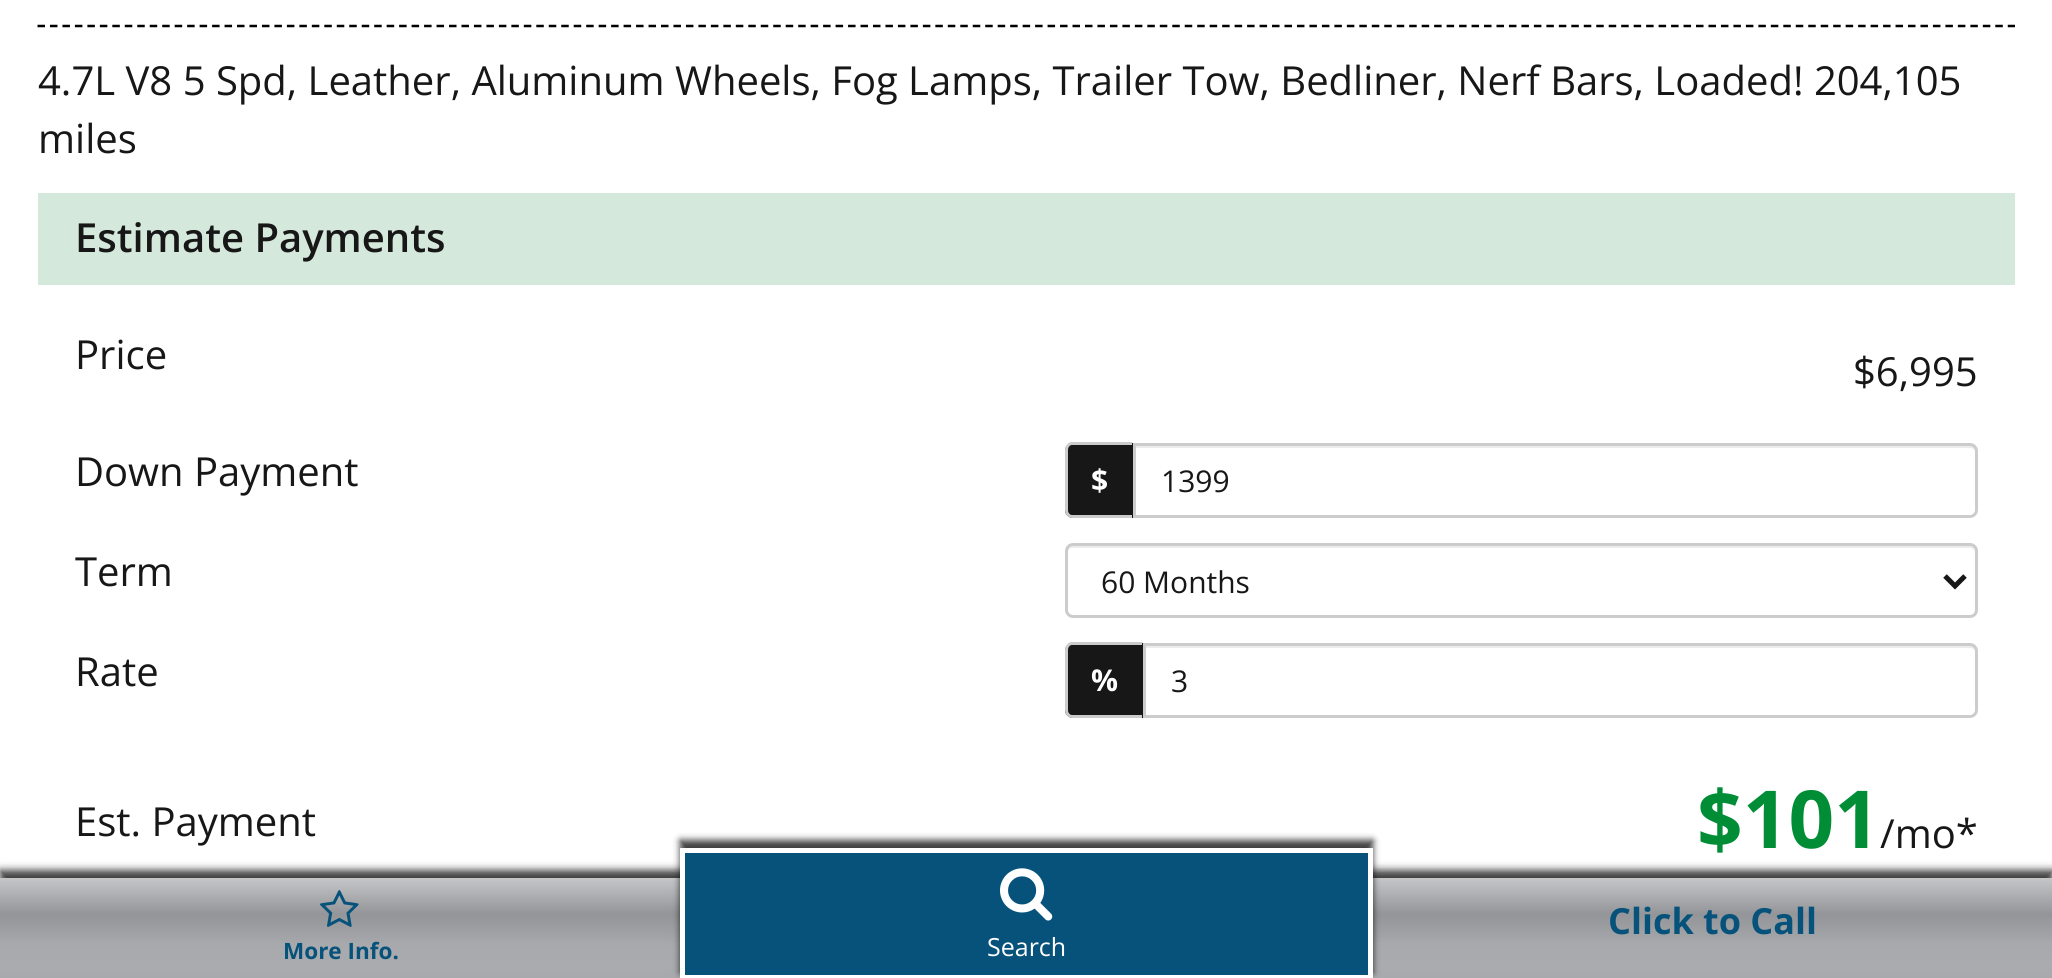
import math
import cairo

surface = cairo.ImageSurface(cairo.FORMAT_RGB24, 2052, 978)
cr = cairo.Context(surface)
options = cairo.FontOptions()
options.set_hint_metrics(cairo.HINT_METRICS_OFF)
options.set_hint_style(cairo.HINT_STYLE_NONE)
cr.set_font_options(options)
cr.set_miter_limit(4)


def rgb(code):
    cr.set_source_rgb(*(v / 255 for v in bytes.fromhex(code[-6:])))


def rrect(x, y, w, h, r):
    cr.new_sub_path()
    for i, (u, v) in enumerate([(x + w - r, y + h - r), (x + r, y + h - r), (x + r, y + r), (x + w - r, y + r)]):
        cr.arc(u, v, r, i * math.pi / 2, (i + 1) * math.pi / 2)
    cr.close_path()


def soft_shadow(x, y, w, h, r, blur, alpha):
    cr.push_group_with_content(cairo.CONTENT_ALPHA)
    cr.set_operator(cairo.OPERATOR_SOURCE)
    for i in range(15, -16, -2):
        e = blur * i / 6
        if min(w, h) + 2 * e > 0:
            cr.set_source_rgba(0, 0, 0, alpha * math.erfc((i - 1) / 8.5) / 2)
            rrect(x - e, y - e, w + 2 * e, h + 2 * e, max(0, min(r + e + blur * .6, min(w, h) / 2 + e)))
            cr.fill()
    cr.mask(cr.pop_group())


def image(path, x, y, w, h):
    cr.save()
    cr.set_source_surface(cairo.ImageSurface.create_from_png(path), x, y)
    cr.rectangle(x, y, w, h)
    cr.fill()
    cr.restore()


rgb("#ffffff")
cr.paint()
cr.new_path()
cr.move_to(37.5, 26)
cr.line_to(2015, 26)
rgb("#000000")
cr.set_line_width(2.5)
cr.set_dash([7.5, 4.97])
cr.stroke()
rgb("#d5e8dc")
cr.rectangle(38, 193, 1977, 92)
cr.fill()
rgb("#171717")
cr.new_path()
cr.move_to(1073, 443)
cr.line_to(1133, 443)
cr.line_to(1133, 518)
cr.line_to(1073, 518)
cr.curve_to(1068.5, 518, 1065, 514.5, 1065, 510)
cr.line_to(1065, 451)
cr.curve_to(1065, 446.5, 1068.5, 443, 1073, 443)
cr.close_path()
cr.fill()
rgb("#cccccc")
cr.set_fill_rule(cairo.FILL_RULE_EVEN_ODD)
cr.new_path()
cr.move_to(1072, 442)
cr.line_to(1132, 442)
cr.line_to(1132, 518)
cr.line_to(1072, 518)
cr.curve_to(1068, 518, 1065, 514, 1065, 510)
cr.line_to(1065, 450)
cr.curve_to(1065, 446, 1068, 442, 1072, 442)
cr.close_path()
cr.move_to(1072, 445)
cr.line_to(1132, 445)
cr.line_to(1132, 515)
cr.line_to(1072, 515)
cr.curve_to(1070, 515, 1068, 513, 1068, 510)
cr.line_to(1068, 450)
cr.curve_to(1068, 447, 1070, 445, 1072, 445)
cr.close_path()
cr.fill()
rgb("#ececec")
cr.set_fill_rule(cairo.FILL_RULE_WINDING)
cr.new_path()
cr.move_to(1135, 448)
cr.line_to(1970, 448)
cr.curve_to(1973, 448, 1975, 450, 1975, 452)
cr.curve_to(1975, 449, 1974, 445, 1970, 445)
cr.line_to(1135, 445)
cr.close_path()
cr.fill()
cr.new_path()
cr.move_to(1134.5, 444.5)
cr.line_to(1970, 444.5)
cr.curve_to(1973.5, 444.5, 1976.5, 447.5, 1976.5, 451)
cr.line_to(1976.5, 510)
cr.curve_to(1976.5, 513.5, 1973.5, 516.5, 1970, 516.5)
cr.line_to(1134.5, 516.5)
cr.close_path()
rgb("#cccccc")
cr.set_line_width(3)
cr.set_dash([])
cr.stroke()
rgb("#ececec")
cr.new_path()
cr.move_to(1072, 548)
cr.line_to(1970, 548)
cr.curve_to(1973, 548, 1975, 550, 1975, 552)
cr.line_to(1975, 550)
cr.curve_to(1975, 547, 1973, 545, 1970, 545)
cr.line_to(1073, 545)
cr.curve_to(1070, 545, 1068, 547, 1068, 550)
cr.line_to(1068, 552)
cr.curve_to(1068, 550, 1070, 548, 1072, 548)
cr.close_path()
cr.fill()
rrect(1066.5, 544.5, 910, 72, 6.5)
rgb("#cccccc")
cr.stroke()
cr.new_path()
cr.move_to(1945, 576)
cr.line_to(1955, 586)
cr.line_to(1965, 576)
rgb("#171717")
cr.set_line_width(5)
cr.stroke()
cr.new_path()
cr.move_to(1073, 643)
cr.line_to(1143, 643)
cr.line_to(1143, 718)
cr.line_to(1073, 718)
cr.curve_to(1068.5, 718, 1065, 714.5, 1065, 710)
cr.line_to(1065, 651)
cr.curve_to(1065, 646.5, 1068.5, 643, 1073, 643)
cr.close_path()
cr.fill()
rgb("#cccccc")
cr.set_fill_rule(cairo.FILL_RULE_EVEN_ODD)
cr.new_path()
cr.move_to(1072, 642)
cr.line_to(1142, 642)
cr.line_to(1142, 718)
cr.line_to(1072, 718)
cr.curve_to(1068, 718, 1065, 714, 1065, 710)
cr.line_to(1065, 650)
cr.curve_to(1065, 646, 1068, 642, 1072, 642)
cr.close_path()
cr.move_to(1072, 645)
cr.line_to(1142, 645)
cr.line_to(1142, 715)
cr.line_to(1072, 715)
cr.curve_to(1070, 715, 1068, 713, 1068, 710)
cr.line_to(1068, 650)
cr.curve_to(1068, 647, 1070, 645, 1072, 645)
cr.close_path()
cr.fill()
rgb("#ececec")
cr.set_fill_rule(cairo.FILL_RULE_WINDING)
cr.new_path()
cr.move_to(1145, 648)
cr.line_to(1970, 648)
cr.curve_to(1973, 648, 1975, 650, 1975, 652)
cr.curve_to(1975, 649, 1974, 645, 1970, 645)
cr.line_to(1145, 645)
cr.close_path()
cr.fill()
cr.new_path()
cr.move_to(1144.5, 644.5)
cr.line_to(1970, 644.5)
cr.curve_to(1973.5, 644.5, 1976.5, 647.5, 1976.5, 651)
cr.line_to(1976.5, 710)
cr.curve_to(1976.5, 713.5, 1973.5, 716.5, 1970, 716.5)
cr.line_to(1144.5, 716.5)
cr.close_path()
rgb("#cccccc")
cr.set_line_width(3)
cr.stroke()
rgb("#000000")
soft_shadow(0, 870, 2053, 103, 0, 4, 0.75)
gradient = cairo.LinearGradient(1026, 877, 1026, 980)
gradient.add_color_stop_rgba(0.01, 0.769, 0.776, 0.784, 1)
gradient.add_color_stop_rgba(0.36, 0.576, 0.584, 0.596, 1)
gradient.add_color_stop_rgba(0.59, 0.635, 0.643, 0.655, 1)
gradient.add_color_stop_rgba(0.65, 0.655, 0.663, 0.675, 1)
gradient.add_color_stop_rgba(0.87, 0.663, 0.671, 0.682, 1)
gradient.add_color_stop_rgba(1, 0.655, 0.663, 0.675, 1)
gradient.add_color_stop_rgba(1, 0.82, 0.827, 0.831, 1)
cr.set_source(gradient)
cr.rectangle(0, 878, 2052, 100)
cr.fill()
image("img/1.png", 320, 890, 39, 37)
rgb("#000000")
soft_shadow(680, 840, 693, 133, 0, 3.5, 0.75)
rgb("#07527b")
cr.rectangle(682.5, 850.5, 688, 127)
cr.fill_preserve()
rgb("#ffffff")
cr.set_line_width(5)
cr.stroke()
image("img/2.png", 1000, 868, 53, 53)
cr.select_font_face("Open Sans")
cr.set_font_size(40)
rgb("#171717")
cr.move_to(38, 95)
cr.show_text("4.7L V8 5 Spd, Leather, Aluminum Wheels, Fog Lamps, Trailer Tow, Bedliner, Nerf Bars, Loaded! 204,105")
cr.move_to(38, 153)
cr.show_text("miles")
cr.select_font_face("Open Sans SemiBold")
cr.move_to(75, 252)
cr.show_text("Estimate Payments")
cr.select_font_face("Open Sans")
for x, y, s in [
    (75, 369, "Price"),
    (1853, 386, "$6,995"),
    (75, 486, "Down Payment"),
]:
    cr.move_to(x, y)
    cr.show_text(s)
cr.select_font_face("Open Sans", cairo.FONT_SLANT_NORMAL, cairo.FONT_WEIGHT_BOLD)
cr.set_font_size(30)
rgb("#ffffff")
cr.move_to(1091, 491)
cr.show_text("$")
cr.select_font_face("Open Sans")
rgb("#171717")
cr.move_to(1161, 492)
cr.show_text("1399")
cr.set_font_size(40)
cr.move_to(75, 586)
cr.show_text("Term")
cr.set_font_size(30)
cr.move_to(1101, 593)
cr.show_text("60 Months")
cr.set_font_size(40)
cr.move_to(75, 686)
cr.show_text("Rate")
cr.select_font_face("Open Sans", cairo.FONT_SLANT_NORMAL, cairo.FONT_WEIGHT_BOLD)
cr.set_font_size(30)
rgb("#ffffff")
cr.move_to(1091, 691)
cr.show_text("%")
cr.select_font_face("Open Sans")
rgb("#171717")
cr.move_to(1171, 692)
cr.show_text("3")
cr.set_font_size(40)
cr.move_to(75, 836)
cr.show_text("Est. Payment")
cr.select_font_face("Open Sans", cairo.FONT_SLANT_NORMAL, cairo.FONT_WEIGHT_BOLD)
cr.set_font_size(80)
rgb("#008d36")
cr.move_to(1697, 848)
cr.show_text("$101")
cr.select_font_face("Open Sans")
cr.set_font_size(40)
rgb("#171717")
cr.move_to(1880, 848)
cr.show_text("/mo*")
cr.select_font_face("Open Sans", cairo.FONT_SLANT_NORMAL, cairo.FONT_WEIGHT_BOLD)
cr.set_font_size(36)
rgb("#07527b")
cr.move_to(1608, 934)
cr.show_text("Click to Call")
cr.set_font_size(22.5)
cr.move_to(283, 959)
cr.show_text("More Info.")
cr.select_font_face("Open Sans")
cr.set_font_size(25)
rgb("#ffffff")
cr.move_to(987, 956)
cr.show_text("Search")
surface.write_to_png("page.png")
